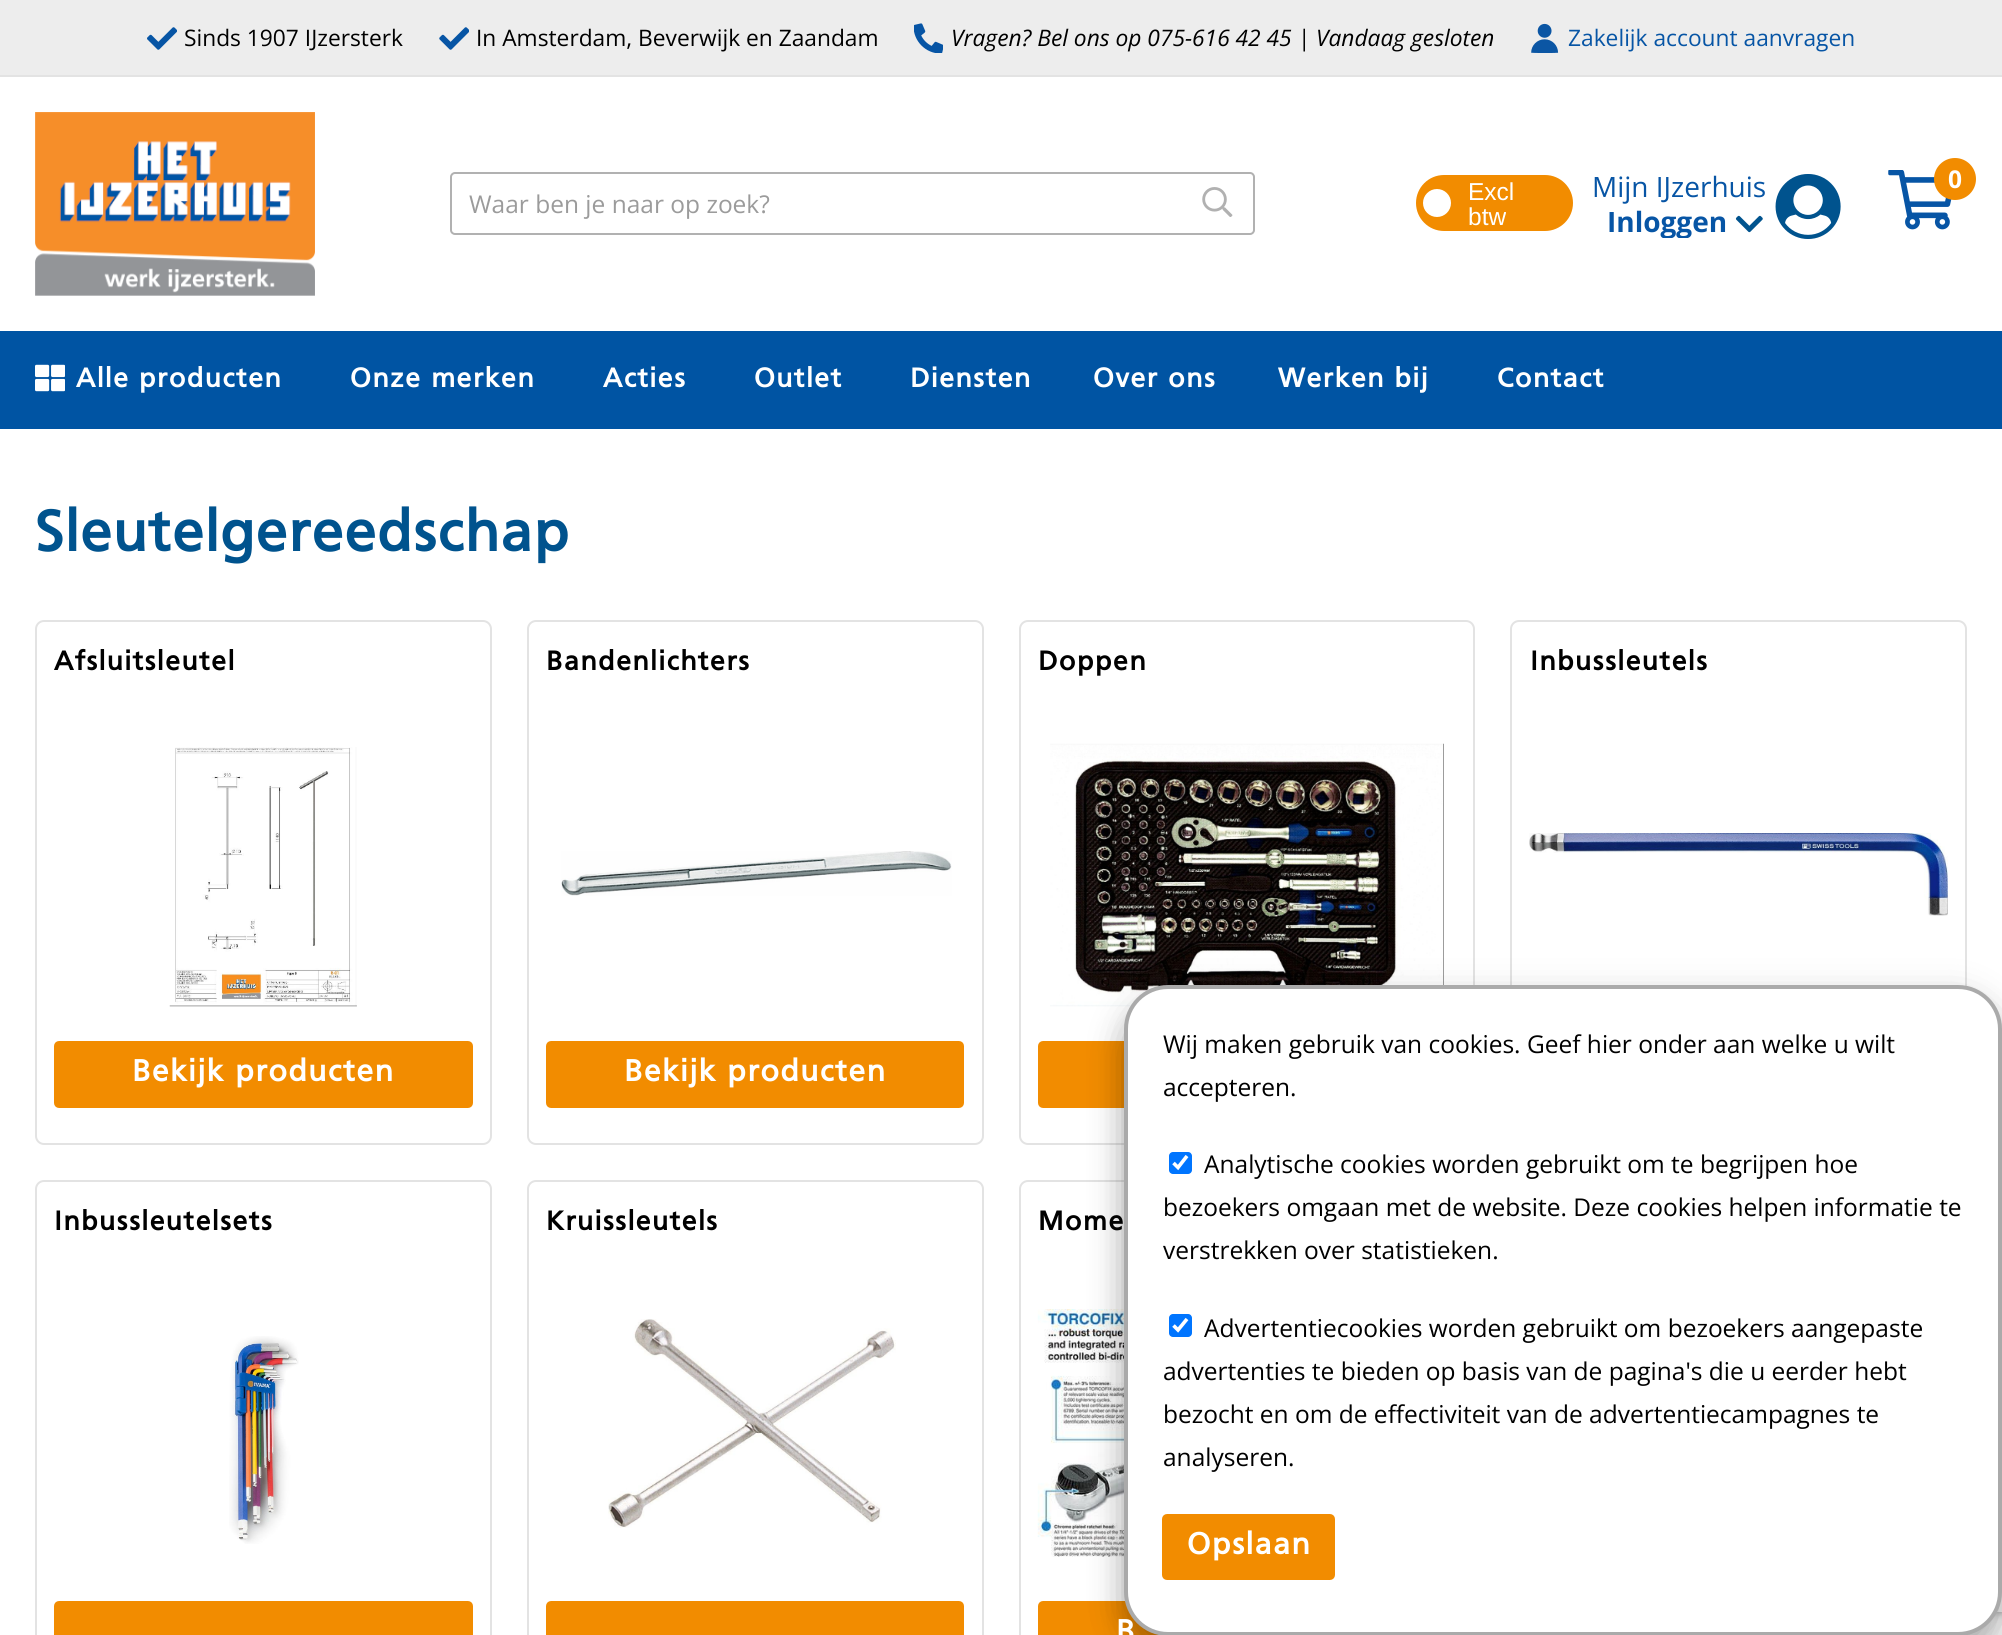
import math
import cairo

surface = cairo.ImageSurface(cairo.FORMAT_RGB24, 2002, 1635)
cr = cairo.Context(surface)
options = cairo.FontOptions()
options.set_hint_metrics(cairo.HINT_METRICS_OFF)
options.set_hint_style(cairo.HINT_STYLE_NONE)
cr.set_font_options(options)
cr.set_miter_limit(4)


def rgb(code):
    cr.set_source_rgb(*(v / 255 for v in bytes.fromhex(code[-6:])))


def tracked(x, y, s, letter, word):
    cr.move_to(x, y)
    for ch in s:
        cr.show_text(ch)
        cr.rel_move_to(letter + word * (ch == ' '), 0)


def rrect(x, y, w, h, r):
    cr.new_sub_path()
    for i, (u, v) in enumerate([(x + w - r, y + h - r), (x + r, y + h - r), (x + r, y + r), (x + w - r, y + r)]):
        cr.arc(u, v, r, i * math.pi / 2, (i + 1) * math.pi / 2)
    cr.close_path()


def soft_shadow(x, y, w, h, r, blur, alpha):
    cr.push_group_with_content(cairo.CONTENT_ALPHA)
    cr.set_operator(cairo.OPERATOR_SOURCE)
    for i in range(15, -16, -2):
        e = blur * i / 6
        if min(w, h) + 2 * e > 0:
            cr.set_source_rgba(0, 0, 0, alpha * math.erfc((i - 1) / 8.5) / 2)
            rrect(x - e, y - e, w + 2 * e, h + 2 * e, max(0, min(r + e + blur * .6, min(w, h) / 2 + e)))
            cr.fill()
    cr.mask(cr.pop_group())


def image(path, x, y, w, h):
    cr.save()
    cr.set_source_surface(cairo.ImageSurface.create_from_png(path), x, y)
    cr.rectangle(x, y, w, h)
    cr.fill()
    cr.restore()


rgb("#ffffff")
cr.paint()
rgb("#ededed")
cr.rectangle(0, 0, 2002, 75)
cr.fill()
rgb("#e3e3e3")
cr.rectangle(0, 75, 2002, 2)
cr.fill()
image("img/1.png", 147, 27, 30, 23)
image("img/2.png", 439, 27, 30, 23)
image("img/3.png", 914, 23, 29, 30)
image("img/4.png", 1531, 23, 28, 30)
image("img/5.png", 35, 112, 280, 184)
rrect(451, 173, 803, 61, 4)
rgb("#b1b1b1")
cr.stroke()
image("img/6.png", 1202, 187, 31, 30)
rgb("#f28c00")
rrect(1416, 175, 157, 56, 28)
cr.fill()
rgb("#ffffff")
cr.arc(1437, 203, 14, 0, 2 * math.pi)
cr.fill()
image("img/7.png", 1775, 174, 66, 65)
image("img/8.png", 1735, 215, 28, 18)
image("img/9.png", 1888, 170, 64, 60)
rgb("#f28c00")
cr.arc(1955, 179, 21, 0, 2 * math.pi)
cr.fill()
rgb("#0054a3")
cr.rectangle(0, 331, 2002, 98)
cr.fill()
image("img/10.png", 35, 364, 30, 28)
rrect(36, 621, 455, 523, 8)
rgb("#e3e3e3")
cr.stroke()
image("img/11.png", 169, 747, 188, 260)
rgb("#f28c00")
rrect(56, 1043, 415, 63, 3)
cr.fill_preserve()
cr.set_line_width(4)
cr.stroke()
rrect(528, 621, 455, 523, 8)
rgb("#e3e3e3")
cr.set_line_width(2)
cr.stroke()
image("img/12.png", 561, 851, 391, 45)
rgb("#f28c00")
rrect(548, 1043, 414, 63, 3)
cr.fill_preserve()
cr.set_line_width(4)
cr.stroke()
rrect(1020, 621, 454, 523, 8)
rgb("#e3e3e3")
cr.set_line_width(2)
cr.stroke()
image("img/13.png", 1050, 743, 394, 264)
rgb("#f28c00")
rrect(1040, 1043, 414, 63, 3)
cr.fill_preserve()
cr.set_line_width(4)
cr.stroke()
rrect(1511, 621, 455, 523, 8)
rgb("#e3e3e3")
cr.set_line_width(2)
cr.stroke()
image("img/14.png", 1529, 833, 419, 83)
rrect(36, 1181, 455, 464, 8)
cr.stroke()
image("img/15.png", 229, 1336, 70, 208)
rgb("#f28c00")
rrect(56, 1603, 415, 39, 3)
cr.fill_preserve()
cr.set_line_width(4)
cr.stroke()
rrect(528, 1181, 455, 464, 8)
rgb("#e3e3e3")
cr.set_line_width(2)
cr.stroke()
image("img/16.png", 608, 1319, 288, 209)
rgb("#f28c00")
rrect(548, 1603, 414, 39, 3)
cr.fill_preserve()
cr.set_line_width(4)
cr.stroke()
rrect(1020, 1181, 454, 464, 8)
rgb("#e3e3e3")
cr.set_line_width(2)
cr.stroke()
image("img/17.png", 1037, 1309, 87, 248)
rgb("#f28c00")
rrect(1040, 1603, 414, 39, 3)
cr.fill_preserve()
cr.set_line_width(4)
cr.stroke()
rgb("#000000")
soft_shadow(1124, 996, 878, 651, 44, 17.5, 0.19)
soft_shadow(1124, 1010, 878, 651, 44, 16, 0.2)
cr.save()
cr.set_fill_rule(cairo.FILL_RULE_EVEN_ODD)
cr.new_path()
cr.move_to(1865, 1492)
cr.line_to(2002, 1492)
cr.line_to(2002, 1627)
cr.line_to(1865, 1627)
cr.close_path()
cr.move_to(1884, 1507)
cr.line_to(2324, 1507)
cr.curve_to(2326, 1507, 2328, 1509, 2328, 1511)
cr.line_to(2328, 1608)
cr.curve_to(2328, 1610, 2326, 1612, 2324, 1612)
cr.line_to(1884, 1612)
cr.curve_to(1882, 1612, 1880, 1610, 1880, 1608)
cr.line_to(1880, 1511)
cr.curve_to(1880, 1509, 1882, 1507, 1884, 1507)
cr.close_path()
cr.clip()
rgb("#808080")
soft_shadow(1880, 1507, 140, 105, 4, 4.5, 1)
cr.restore()
rgb("#ffffff")
rrect(1126, 987, 874, 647, 42)
cr.fill_preserve()
rgb("#aaaaaa")
cr.stroke()
rgb("#0075ff")
rrect(1169, 1152, 23, 22, 4)
cr.fill()
cr.new_path()
cr.move_to(1173.5, 1163)
cr.line_to(1178, 1167.5)
cr.line_to(1187, 1156)
rgb("#ffffff")
cr.set_line_width(3.6)
cr.stroke()
rgb("#0075ff")
rrect(1169, 1314, 23, 23, 4)
cr.fill()
cr.new_path()
cr.move_to(1173.5, 1325.5)
cr.line_to(1178, 1330)
cr.line_to(1187, 1319)
rgb("#ffffff")
cr.stroke()
rgb("#f28c00")
rrect(1164, 1516, 169, 62, 3)
cr.fill_preserve()
cr.set_line_width(4)
cr.stroke()
cr.select_font_face("Open Sans")
cr.set_font_size(22.75)
rgb("#000000")
cr.move_to(184, 46)
cr.show_text("Sinds 1907 IJzersterk")
cr.move_to(476, 46)
cr.show_text("In Amsterdam, Beverwijk en Zaandam")
cr.select_font_face("Open Sans", cairo.FONT_SLANT_ITALIC)
cr.move_to(951, 46)
cr.show_text("Vragen? Bel ons op 075-616 42 45 | Vandaag gesloten")
cr.select_font_face("Open Sans")
rgb("#0755a5")
cr.move_to(1568, 46)
cr.show_text("Zakelijk account aanvragen")
cr.set_font_size(24.5)
rgb("#9b9b9b")
cr.move_to(469, 213)
cr.show_text("Waar ben je naar op zoek?")
cr.select_font_face("Liberation Sans")
rgb("#ffffff")
cr.move_to(1468, 200)
cr.show_text("Excl")
cr.move_to(1468, 225)
cr.show_text("btw")
cr.select_font_face("Open Sans")
cr.set_font_size(28)
rgb("#0755a5")
cr.move_to(1592, 197)
cr.show_text("Mijn IJzerhuis")
cr.save()
cr.rectangle(1607, 203, 120, 35)
cr.clip()
cr.select_font_face("Open Sans", cairo.FONT_SLANT_NORMAL, cairo.FONT_WEIGHT_BOLD)
cr.move_to(1607, 232)
cr.show_text("Inloggen")
cr.restore()
cr.select_font_face("Open Sans", cairo.FONT_SLANT_NORMAL, cairo.FONT_WEIGHT_BOLD)
cr.set_font_size(24.5)
rgb("#ffffff")
cr.move_to(1948, 188)
cr.show_text("0")
cr.select_font_face("Frutiger", cairo.FONT_SLANT_NORMAL, cairo.FONT_WEIGHT_BOLD)
cr.set_font_size(28)
for x, y, s in [
    (76, 387, "Alle producten"),
    (350, 387, "Onze merken"),
    (603, 387, "Acties"),
    (754, 387, "Outlet"),
    (910, 387, "Diensten"),
    (1093, 387, "Over ons"),
    (1278, 387, "Werken bij"),
    (1497, 387, "Contact"),
]:
    tracked(x, y, s, 1.75, 0)
cr.set_font_size(59.5)
rgb("#00538e")
tracked(35, 551, "Sleutelgereedschap", 1.75, 0)
cr.set_font_size(28)
rgb("#000000")
tracked(54, 670, "Afsluitsleutel", 1.75, 0)
cr.set_font_size(31.5)
rgb("#ffffff")
tracked(132, 1081, "Bekijk producten", 1.75, 0)
cr.set_font_size(28)
rgb("#000000")
tracked(546, 670, "Bandenlichters", 1.75, 0)
cr.set_font_size(31.5)
rgb("#ffffff")
tracked(624, 1081, "Bekijk producten", 1.75, 0)
cr.set_font_size(28)
rgb("#000000")
for x, y, s in [
    (1038, 670, "Doppen"),
    (1530, 670, "Inbussleutels"),
    (54, 1230, "Inbussleutelsets"),
    (546, 1230, "Kruissleutels"),
    (1038, 1230, "Mome"),
]:
    tracked(x, y, s, 1.75, 0)
cr.set_font_size(31.5)
rgb("#ffffff")
tracked(1116, 1641, "B", 1.75, 0)
cr.select_font_face("Open Sans")
cr.set_font_size(24.5)
rgb("#000000")
for x, y, s in [
    (1163, 1053, "Wij maken gebruik van cookies. Geef hier onder aan welke u wilt"),
    (1163, 1096, "accepteren."),
    (1204, 1173, "Analytische cookies worden gebruikt om te begrijpen hoe"),
    (1163, 1216, "bezoekers omgaan met de website. Deze cookies helpen informatie te"),
    (1163, 1259, "verstrekken over statistieken."),
    (1204, 1337, "Advertentiecookies worden gebruikt om bezoekers aangepaste"),
    (1163, 1380, "advertenties te bieden op basis van de pagina's die u eerder hebt"),
    (1163, 1423, "bezocht en om de effectiviteit van de advertentiecampagnes te"),
    (1163, 1466, "analyseren."),
]:
    cr.move_to(x, y)
    cr.show_text(s)
cr.select_font_face("Frutiger", cairo.FONT_SLANT_NORMAL, cairo.FONT_WEIGHT_BOLD)
cr.set_font_size(31.5)
rgb("#ffffff")
tracked(1187, 1554, "Opslaan", 1.75, 0)
surface.write_to_png("page.png")
